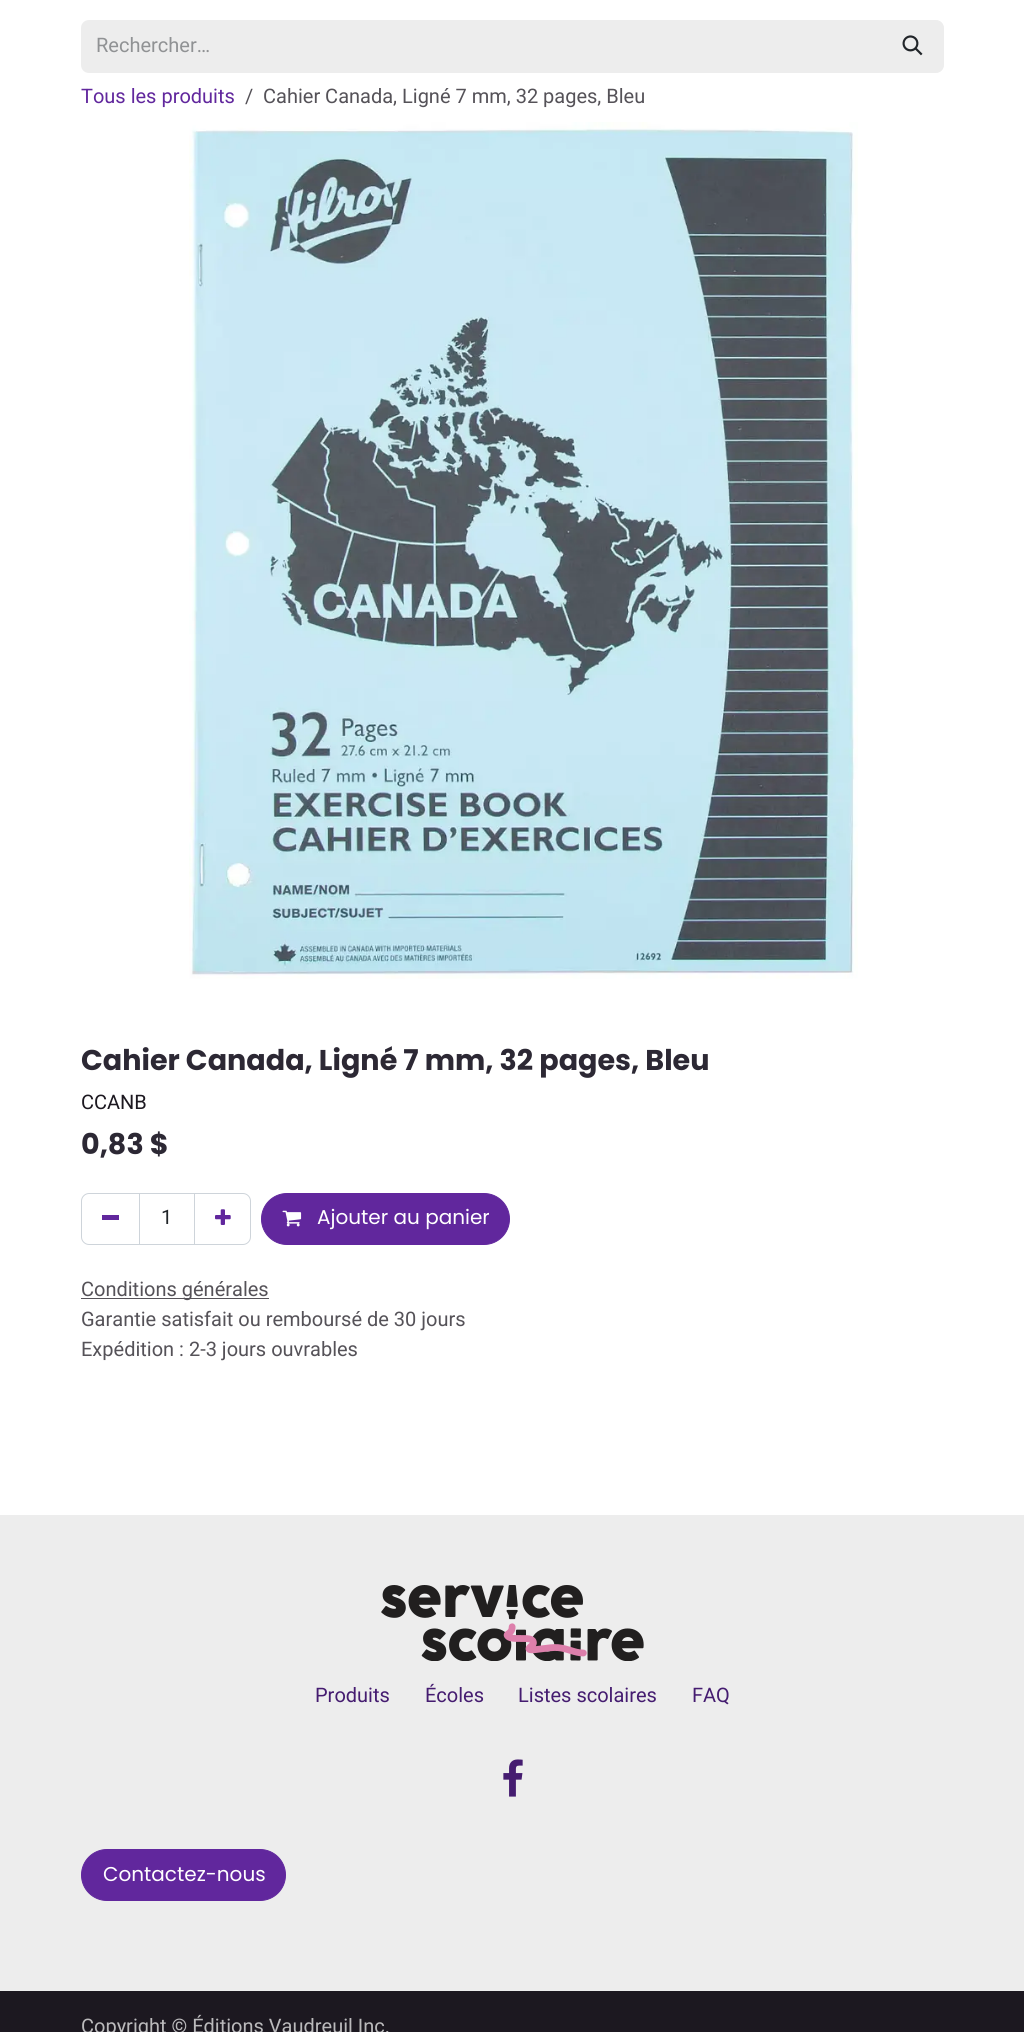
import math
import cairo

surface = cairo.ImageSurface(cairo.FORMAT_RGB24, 1024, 2032)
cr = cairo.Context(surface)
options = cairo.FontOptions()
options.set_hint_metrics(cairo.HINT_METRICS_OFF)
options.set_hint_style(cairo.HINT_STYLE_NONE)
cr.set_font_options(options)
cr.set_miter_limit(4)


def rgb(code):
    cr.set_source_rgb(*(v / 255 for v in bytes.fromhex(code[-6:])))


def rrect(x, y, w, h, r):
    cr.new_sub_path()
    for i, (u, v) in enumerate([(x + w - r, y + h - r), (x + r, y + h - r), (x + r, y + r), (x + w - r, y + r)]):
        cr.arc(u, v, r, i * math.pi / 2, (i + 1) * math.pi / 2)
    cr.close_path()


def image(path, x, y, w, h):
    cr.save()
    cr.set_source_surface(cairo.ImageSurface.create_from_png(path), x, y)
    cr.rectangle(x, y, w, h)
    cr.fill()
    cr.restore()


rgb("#ffffff")
cr.paint()
rgb("#ededed")
cr.new_path()
cr.move_to(89, 20)
cr.line_to(883, 20)
cr.line_to(883, 73)
cr.line_to(89, 73)
cr.curve_to(84.5, 73, 81, 69.5, 81, 65)
cr.line_to(81, 28)
cr.curve_to(81, 23.5, 84.5, 20, 89, 20)
cr.close_path()
cr.fill()
cr.new_path()
cr.move_to(881.5, 20.5)
cr.line_to(936, 20.5)
cr.curve_to(940, 20.5, 943.5, 24, 943.5, 28)
cr.line_to(943.5, 65)
cr.curve_to(943.5, 69, 940, 72.5, 936, 72.5)
cr.line_to(881.5, 72.5)
cr.close_path()
cr.fill_preserve()
cr.set_line_width(1)
cr.stroke()
image("img/1.png", 902, 35, 21, 21)
image("img/2.png", 189, 122, 669, 857)
cr.rectangle(139.5, 1193.5, 55, 51)
rgb("#ced4da")
cr.stroke()
cr.new_path()
cr.move_to(89, 1193.5)
cr.line_to(139.5, 1193.5)
cr.line_to(139.5, 1244.5)
cr.line_to(89, 1244.5)
cr.curve_to(85, 1244.5, 81.5, 1241, 81.5, 1237)
cr.line_to(81.5, 1201)
cr.curve_to(81.5, 1197, 85, 1193.5, 89, 1193.5)
cr.close_path()
cr.stroke()
rgb("#61279d")
cr.rectangle(102, 1215, 17, 5)
cr.fill()
cr.new_path()
cr.move_to(194.5, 1193.5)
cr.line_to(243, 1193.5)
cr.curve_to(247, 1193.5, 250.5, 1197, 250.5, 1201)
cr.line_to(250.5, 1237)
cr.curve_to(250.5, 1241, 247, 1244.5, 243, 1244.5)
cr.line_to(194.5, 1244.5)
cr.close_path()
rgb("#ced4da")
cr.stroke()
image("img/3.png", 215, 1209, 16, 16)
rgb("#61279d")
rrect(261.5, 1193.5, 248, 51, 25.5)
cr.fill_preserve()
cr.stroke()
image("img/4.png", 282, 1210, 20, 17)
rgb("#555258")
cr.rectangle(81, 1298, 188, 1)
cr.fill()
rgb("#ededed")
cr.rectangle(0, 1515, 1024, 476)
cr.fill()
image("img/5.png", 381, 1585, 263, 76)
image("img/6.png", 503, 1759, 20, 38)
rgb("#61279d")
rrect(81.5, 1849.5, 204, 51, 25.5)
cr.fill_preserve()
cr.stroke()
rgb("#1c1820")
cr.rectangle(0, 1991, 1024, 41)
cr.fill()
cr.select_font_face("Roboto")
cr.set_font_size(20)
rgb("#909294")
cr.move_to(96, 52)
cr.show_text("Rechercher…")
rgb("#61279d")
cr.move_to(81, 103)
cr.show_text("Tous les produits")
rgb("#555258")
cr.move_to(245, 103)
cr.show_text("/")
cr.move_to(263, 103)
cr.show_text("Cahier Canada, Ligné 7 mm, 32 pages, Bleu")
cr.select_font_face("Poppins", cairo.FONT_SLANT_NORMAL, cairo.FONT_WEIGHT_BOLD)
cr.set_font_size(28.6)
rgb("#2c2834")
cr.move_to(81, 1070)
cr.show_text("Cahier Canada, Ligné 7 mm, 32 pages, Bleu")
cr.select_font_face("Roboto")
cr.set_font_size(20)
rgb("#1c1820")
cr.move_to(81, 1109)
cr.show_text("CCANB")
cr.select_font_face("Poppins", cairo.FONT_SLANT_NORMAL, cairo.FONT_WEIGHT_BOLD)
cr.set_font_size(28.6)
rgb("#2c2834")
cr.move_to(81, 1154)
cr.show_text("0,83 $")
cr.select_font_face("Roboto")
cr.set_font_size(20)
rgb("#212529")
cr.move_to(161, 1224)
cr.show_text("1")
cr.select_font_face("Poppins")
rgb("#ffffff")
cr.move_to(317, 1224)
cr.show_text("Ajouter au panier")
cr.select_font_face("Roboto")
rgb("#555258")
for x, y, s in [
    (81, 1296, "Conditions générales"),
    (81, 1326, "Garantie satisfait ou remboursé de 30 jours"),
    (81, 1356, "Expédition : 2-3 jours ouvrables"),
]:
    cr.move_to(x, y)
    cr.show_text(s)
rgb("#451c70")
for x, y, s in [
    (315, 1702, "Produits"),
    (425, 1702, "Écoles"),
    (518, 1702, "Listes scolaires"),
    (692, 1702, "FAQ"),
]:
    cr.move_to(x, y)
    cr.show_text(s)
cr.select_font_face("Poppins")
rgb("#ffffff")
cr.move_to(103, 1881)
cr.show_text("Contactez-nous")
cr.select_font_face("Roboto")
rgb("#bbbabc")
cr.move_to(81, 2033)
cr.show_text("Copyright © Éditions Vaudreuil Inc.")
surface.write_to_png("page.png")
